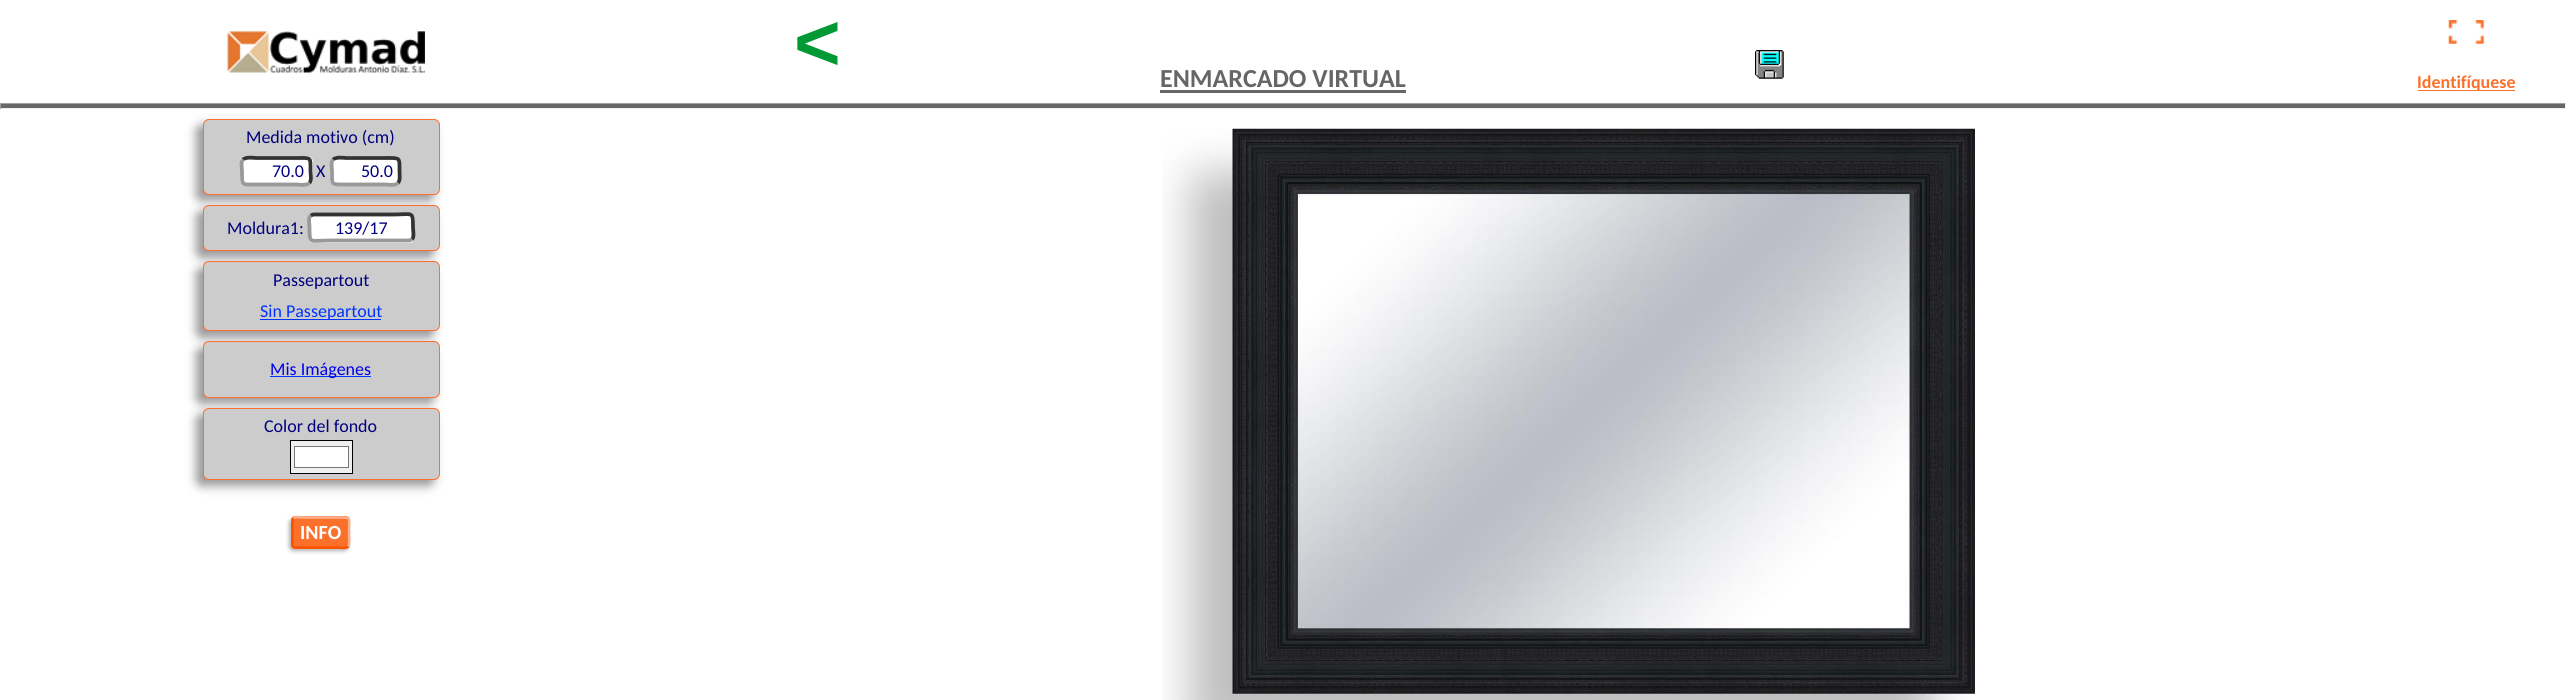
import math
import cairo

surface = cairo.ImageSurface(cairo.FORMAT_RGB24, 2566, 700)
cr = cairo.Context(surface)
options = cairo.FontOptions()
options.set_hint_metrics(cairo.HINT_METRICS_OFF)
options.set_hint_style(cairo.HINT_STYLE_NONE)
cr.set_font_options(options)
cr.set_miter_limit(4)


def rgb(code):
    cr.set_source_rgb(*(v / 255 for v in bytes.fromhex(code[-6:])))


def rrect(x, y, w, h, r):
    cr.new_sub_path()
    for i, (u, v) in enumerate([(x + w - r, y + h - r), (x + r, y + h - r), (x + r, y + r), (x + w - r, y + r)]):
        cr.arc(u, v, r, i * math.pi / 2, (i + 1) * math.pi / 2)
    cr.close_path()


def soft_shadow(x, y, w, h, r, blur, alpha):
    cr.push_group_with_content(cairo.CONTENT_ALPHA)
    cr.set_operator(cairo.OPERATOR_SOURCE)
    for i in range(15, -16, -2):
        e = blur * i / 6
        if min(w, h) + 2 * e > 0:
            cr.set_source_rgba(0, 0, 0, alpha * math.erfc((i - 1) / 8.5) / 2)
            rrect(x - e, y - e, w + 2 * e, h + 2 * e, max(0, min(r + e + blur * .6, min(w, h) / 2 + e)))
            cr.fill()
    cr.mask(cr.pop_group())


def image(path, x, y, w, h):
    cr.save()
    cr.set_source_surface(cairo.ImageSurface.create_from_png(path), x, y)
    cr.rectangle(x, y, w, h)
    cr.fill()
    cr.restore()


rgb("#ffffff")
cr.paint()
image("img/1.png", 227, 31, 198, 42)
rgb("#666666")
cr.rectangle(1160, 90, 246, 3)
cr.fill()
image("img/2.png", 2448, 20, 36, 24)
image("img/3.png", 1755, 50, 29, 29)
for x, y, w, h, color in [
    (2418, 90, 97, 1, "#fb702b"),
    (0, 104, 2566, 4, "#666666"),
    (0, 103, 2566, 1, "#9f9f9f"),
    (2565, 103, 1, 6, "#eeeeee"),
    (0, 108, 2566, 1, "#eeeeee"),
    (0, 103, 1, 6, "#9f9f9f"),
]:
    rgb(color)
    cr.rectangle(x, y, w, h)
    cr.fill()
rgb("#000000")
soft_shadow(196, 125, 238, 76, 6, 5, 0.4)
rgb("#cccccc")
rrect(203.5, 119.5, 236, 75, 5.5)
cr.fill_preserve()
rgb("#fb702b")
cr.set_line_width(1)
cr.stroke()
rgb("#ffffff")
rrect(240, 156, 73, 30, 6)
cr.fill()
cr.new_path()
cr.move_to(243, 159.5)
cr.curve_to(246, 156.5, 255, 158, 256, 158)
cr.line_to(296.5, 158)
cr.curve_to(311.5, 158, 310.5, 156.5, 310.5, 171)
cr.curve_to(310.5, 174, 312, 180.5, 309.5, 183)
rgb("#333333")
cr.set_line_width(3.8)
cr.stroke()
cr.new_path()
cr.move_to(309.5, 183)
cr.curve_to(306.5, 186, 297.5, 184.5, 296.5, 184.5)
cr.line_to(256, 184.5)
cr.curve_to(241, 184.5, 242, 186, 242, 171)
cr.curve_to(242, 168.5, 240.5, 162, 243, 159.5)
rgb("#999999")
cr.stroke()
rgb("#ffffff")
rrect(330, 156, 71, 30, 6)
cr.fill()
cr.new_path()
cr.move_to(333, 159.5)
cr.curve_to(336, 156.5, 345, 158, 346, 158)
cr.line_to(385.5, 158)
cr.curve_to(400.5, 158, 399.5, 157, 399.5, 171)
cr.curve_to(399.5, 174, 400.5, 180.5, 398, 183)
rgb("#333333")
cr.stroke()
cr.new_path()
cr.move_to(398, 183)
cr.curve_to(395.5, 186, 386.5, 184.5, 385.5, 184.5)
cr.line_to(346, 184.5)
cr.curve_to(330.5, 184.5, 332, 185.5, 332, 171)
cr.curve_to(332, 168.5, 330.5, 162, 333, 159.5)
rgb("#999999")
cr.stroke()
rgb("#000000")
soft_shadow(196, 211, 238, 47, 6, 5, 0.4)
rgb("#cccccc")
rrect(203.5, 205.5, 236, 45, 5.5)
cr.fill_preserve()
rgb("#fb702b")
cr.set_line_width(1)
cr.stroke()
rgb("#ffffff")
rrect(308, 213, 107, 30, 6)
cr.fill()
cr.new_path()
cr.move_to(310.5, 215.5)
cr.line_to(313.5, 214.5)
cr.line_to(393, 214.5)
cr.curve_to(413, 214.5, 413, 210.5, 413, 227.5)
cr.curve_to(413, 230.5, 414.5, 237, 412, 239.5)
rgb("#333333")
cr.set_line_width(3.8)
cr.stroke()
cr.new_path()
cr.move_to(412, 239.5)
cr.line_to(409, 240.5)
cr.line_to(329.5, 240.5)
cr.curve_to(309.5, 240.5, 309.5, 244.5, 309.5, 227.5)
cr.curve_to(309.5, 224.5, 308, 218, 310.5, 215.5)
rgb("#999999")
cr.stroke()
rgb("#000000")
soft_shadow(196, 268, 238, 70, 6, 5, 0.4)
rgb("#cccccc")
rrect(203.5, 261.5, 236, 69, 5.5)
cr.fill_preserve()
rgb("#fb702b")
cr.set_line_width(1)
cr.stroke()
rgb("#0033ff")
cr.rectangle(260, 319, 121, 1)
cr.fill()
rgb("#000000")
soft_shadow(196, 348, 238, 56, 6, 5, 0.4)
rgb("#cccccc")
rrect(203.5, 341.5, 236, 56, 5.5)
cr.fill_preserve()
rgb("#fb702b")
cr.stroke()
rgb("#0033ff")
cr.rectangle(270, 376, 101, 1)
cr.fill()
rgb("#000000")
soft_shadow(196, 414, 238, 72, 6, 5, 0.4)
rgb("#cccccc")
rrect(203.5, 408.5, 236, 71, 5.5)
cr.fill_preserve()
rgb("#fb702b")
cr.stroke()
rgb("#efefef")
cr.rectangle(290.5, 440.5, 62, 33)
cr.fill_preserve()
rgb("#000000")
cr.stroke()
rgb("#ffffff")
cr.rectangle(294.5, 446.5, 54, 21)
cr.fill_preserve()
rgb("#777777")
cr.stroke()
rgb("#000000")
soft_shadow(289, 519, 59, 32, 4, 2, 0.3)
rgb("#fb702b")
rrect(291, 516, 59, 33, 4)
cr.fill()
cr.new_path()
cr.move_to(293.5, 518.5)
cr.curve_to(296, 516, 300, 517.5, 303.5, 517.5)
cr.line_to(337.5, 517.5)
cr.curve_to(352, 517.5, 349, 516.5, 349, 532.5)
cr.curve_to(349, 535, 350, 545, 348, 546.5)
rgb("#fbb18d")
cr.set_line_width(2.5)
cr.stroke()
cr.new_path()
cr.move_to(348, 546.5)
cr.curve_to(345.5, 549, 341, 547.5, 337.5, 547.5)
cr.line_to(303.5, 547.5)
cr.curve_to(289, 547.5, 292.5, 548.5, 292.5, 532.5)
cr.curve_to(292.5, 530, 291.5, 520, 293.5, 518.5)
rgb("#fb5300")
cr.stroke()
image("img/4.png", 1162, 128, 813, 572)
cr.select_font_face("Liberation Sans", cairo.FONT_SLANT_NORMAL, cairo.FONT_WEIGHT_BOLD)
cr.set_font_size(80)
rgb("#009933")
cr.move_to(794, 70)
cr.show_text("<")
cr.select_font_face("Carlito", cairo.FONT_SLANT_NORMAL, cairo.FONT_WEIGHT_BOLD)
cr.set_font_size(26)
rgb("#666666")
cr.move_to(1160, 87)
cr.show_text("ENMARCADO VIRTUAL")
cr.set_font_size(18)
rgb("#fb702b")
cr.move_to(2417, 88)
cr.show_text("Identifíquese")
cr.select_font_face("Carlito")
rgb("#000080")
for x, y, s in [
    (246, 143, "Medida motivo (cm)"),
    (272, 177, "70.0"),
    (316, 177, "X"),
    (361, 177, "50.0"),
    (227, 234, "Moldura1:"),
    (335, 234, "139/17"),
    (273, 286, "Passepartout"),
]:
    cr.move_to(x, y)
    cr.show_text(s)
rgb("#0033ff")
cr.move_to(260, 317)
cr.show_text("Sin Passepartout")
rgb("#0000ee")
cr.move_to(270, 375)
cr.show_text("Mis Imágenes")
rgb("#000080")
cr.move_to(264, 432)
cr.show_text("Color del fondo")
cr.select_font_face("Carlito", cairo.FONT_SLANT_NORMAL, cairo.FONT_WEIGHT_BOLD)
cr.set_font_size(20)
rgb("#ffffff")
cr.move_to(300, 539)
cr.show_text("INFO")
surface.write_to_png("page.png")
